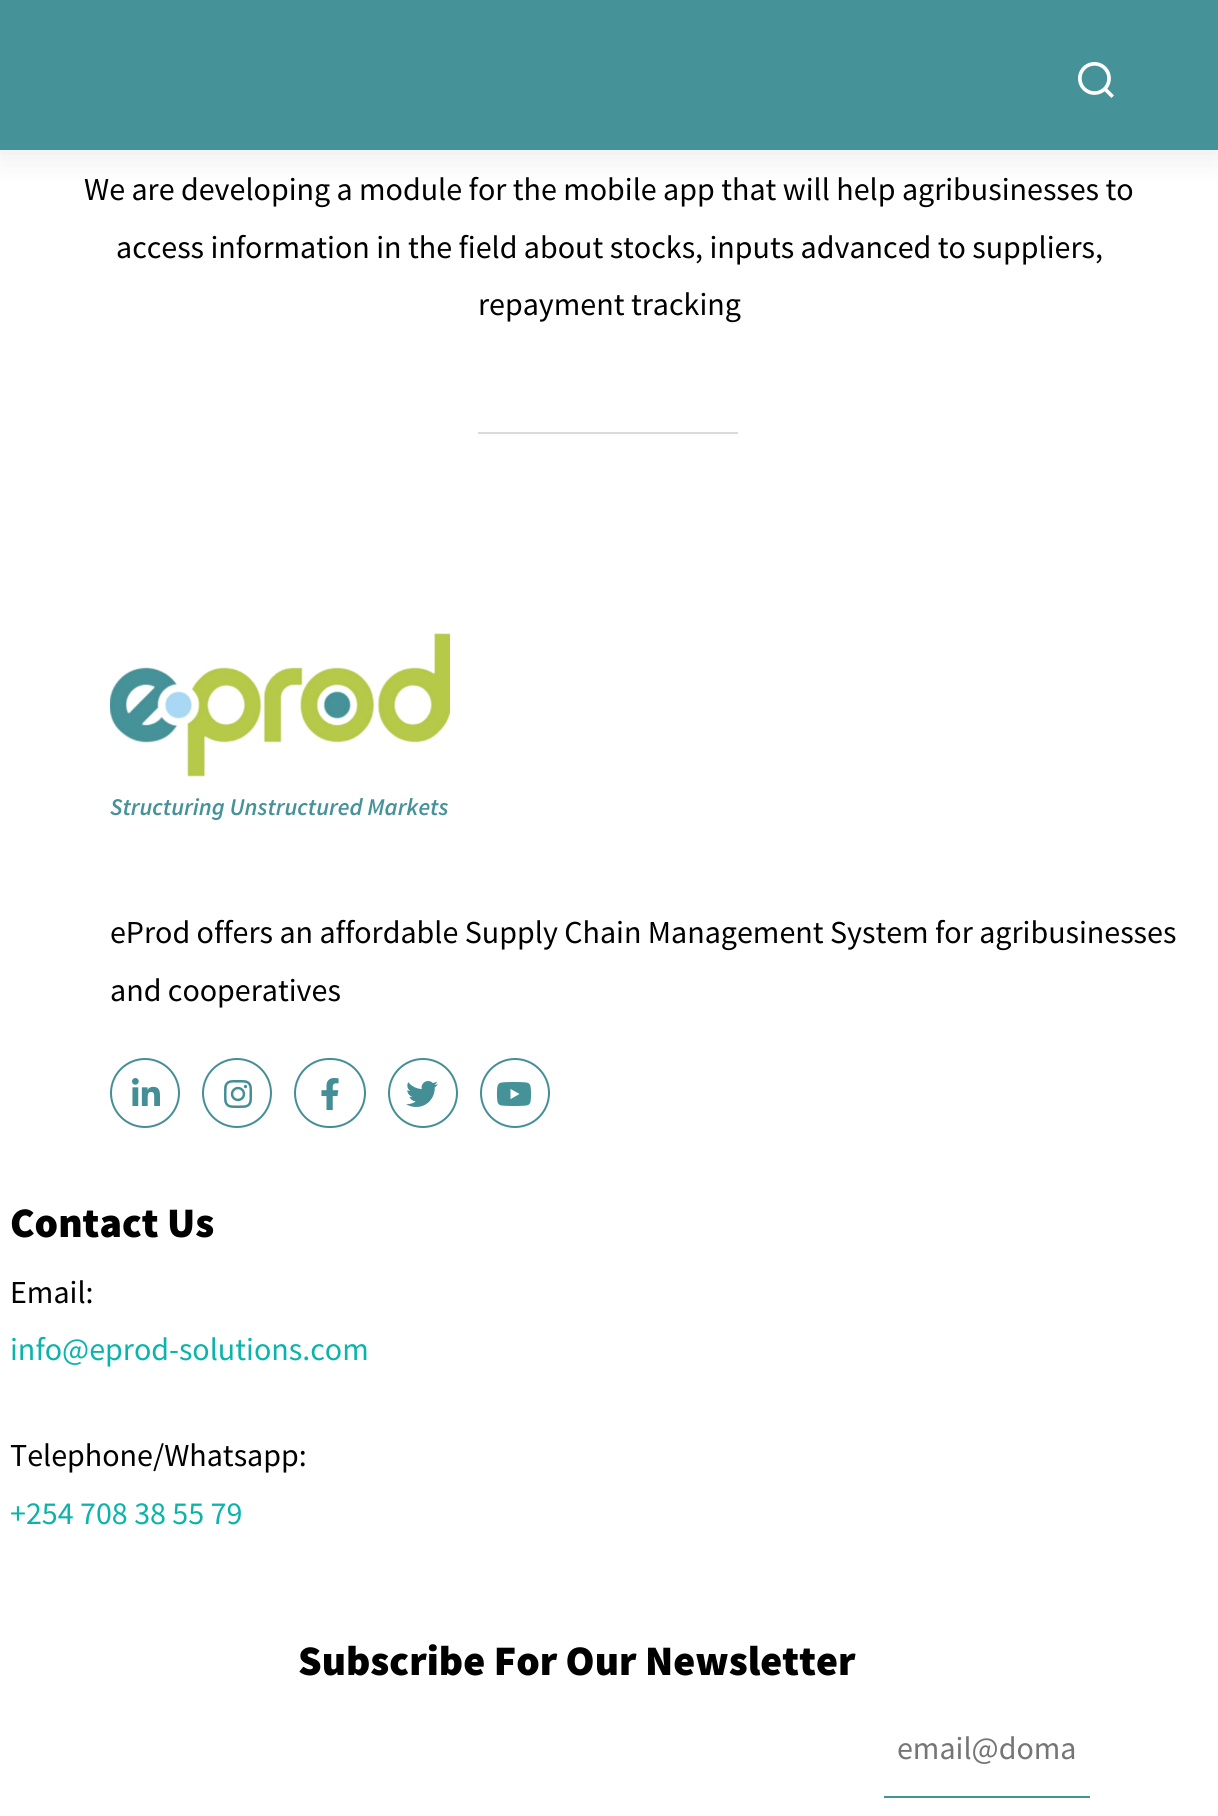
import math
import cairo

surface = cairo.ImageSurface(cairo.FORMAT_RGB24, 1218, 1816)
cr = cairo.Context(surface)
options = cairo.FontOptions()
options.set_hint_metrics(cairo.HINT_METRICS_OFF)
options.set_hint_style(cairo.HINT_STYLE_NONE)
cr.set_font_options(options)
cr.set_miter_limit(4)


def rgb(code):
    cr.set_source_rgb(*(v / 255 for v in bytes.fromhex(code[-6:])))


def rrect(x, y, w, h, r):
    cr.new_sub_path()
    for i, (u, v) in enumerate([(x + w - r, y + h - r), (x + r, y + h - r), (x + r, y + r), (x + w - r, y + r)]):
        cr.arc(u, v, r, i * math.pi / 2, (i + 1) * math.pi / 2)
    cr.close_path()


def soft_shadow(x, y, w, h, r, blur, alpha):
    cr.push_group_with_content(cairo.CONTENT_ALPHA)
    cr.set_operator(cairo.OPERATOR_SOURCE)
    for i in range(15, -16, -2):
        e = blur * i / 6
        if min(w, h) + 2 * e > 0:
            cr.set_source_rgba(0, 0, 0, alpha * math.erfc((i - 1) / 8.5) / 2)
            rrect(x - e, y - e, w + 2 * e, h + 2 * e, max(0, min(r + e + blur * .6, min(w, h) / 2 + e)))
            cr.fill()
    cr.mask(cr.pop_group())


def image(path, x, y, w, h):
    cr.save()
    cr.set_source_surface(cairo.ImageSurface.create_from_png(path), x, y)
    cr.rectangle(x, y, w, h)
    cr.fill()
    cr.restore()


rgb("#ffffff")
cr.paint()
rgb("#000000")
soft_shadow(-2, -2, 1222, 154, 0, 18, 0.1)
rgb("#469299")
cr.rectangle(0, 0, 1218, 150)
cr.fill()
image("img/1.png", 1078, 62, 36, 36)
rgb("#dbdbdb")
cr.rectangle(478, 432, 260, 2)
cr.fill()
image("img/2.png", 110, 633, 340, 144)
cr.arc(145, 1093, 34, 0, 2 * math.pi)
rgb("#448e96")
cr.stroke()
image("img/3.png", 132, 1078, 28, 28)
cr.arc(237, 1093, 34, 0, 2 * math.pi)
cr.stroke()
image("img/4.png", 224, 1079, 29, 29)
rrect(295, 1059, 70, 68, 34)
cr.stroke()
image("img/5.png", 321, 1078, 18, 32)
cr.arc(423, 1093, 34, 0, 2 * math.pi)
cr.stroke()
image("img/6.png", 406, 1081, 32, 26)
cr.arc(515, 1093, 34, 0, 2 * math.pi)
cr.stroke()
image("img/7.png", 496, 1082, 36, 24)
rgb("#469299")
cr.rectangle(884, 1796, 206, 2)
cr.fill()
cr.select_font_face("Source Sans Pro")
cr.set_font_size(32)
rgb("#000000")
for x, y, s in [
    (84, 200, "We are developing a module for the mobile app that will help agribusinesses to"),
    (116, 258, "access information in the field about stocks, inputs advanced to suppliers,"),
    (478, 315, "repayment tracking"),
]:
    cr.move_to(x, y)
    cr.show_text(s)
cr.select_font_face("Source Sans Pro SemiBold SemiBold", cairo.FONT_SLANT_ITALIC)
cr.set_font_size(24)
rgb("#469299")
cr.move_to(110, 815)
cr.show_text("Structuring Unstructured Markets")
cr.select_font_face("Source Sans Pro")
cr.set_font_size(32)
rgb("#000000")
cr.move_to(110, 943)
cr.show_text("eProd offers an affordable Supply Chain Management System for agribusinesses")
cr.move_to(110, 1001)
cr.show_text("and cooperatives")
cr.select_font_face("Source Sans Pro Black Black")
cr.set_font_size(42)
cr.move_to(10, 1237)
cr.show_text("Contact Us")
cr.select_font_face("Source Sans Pro")
cr.set_font_size(32)
cr.move_to(10, 1303)
cr.show_text("Email:")
rgb("#0bb4aa")
cr.move_to(10, 1360)
cr.show_text("info@eprod-solutions.com")
rgb("#000000")
cr.move_to(10, 1466)
cr.show_text("Telephone/Whatsapp:")
rgb("#0bb4aa")
cr.move_to(10, 1524)
cr.show_text("+254 708 38 55 79")
cr.select_font_face("Source Sans Pro Black Black")
cr.set_font_size(42)
rgb("#000000")
cr.move_to(298, 1675)
cr.show_text("Subscribe For Our Newsletter")
cr.select_font_face("Source Sans Pro")
cr.set_font_size(32)
rgb("#757575")
cr.move_to(897, 1759)
cr.show_text("email@doma")
surface.write_to_png("page.png")
